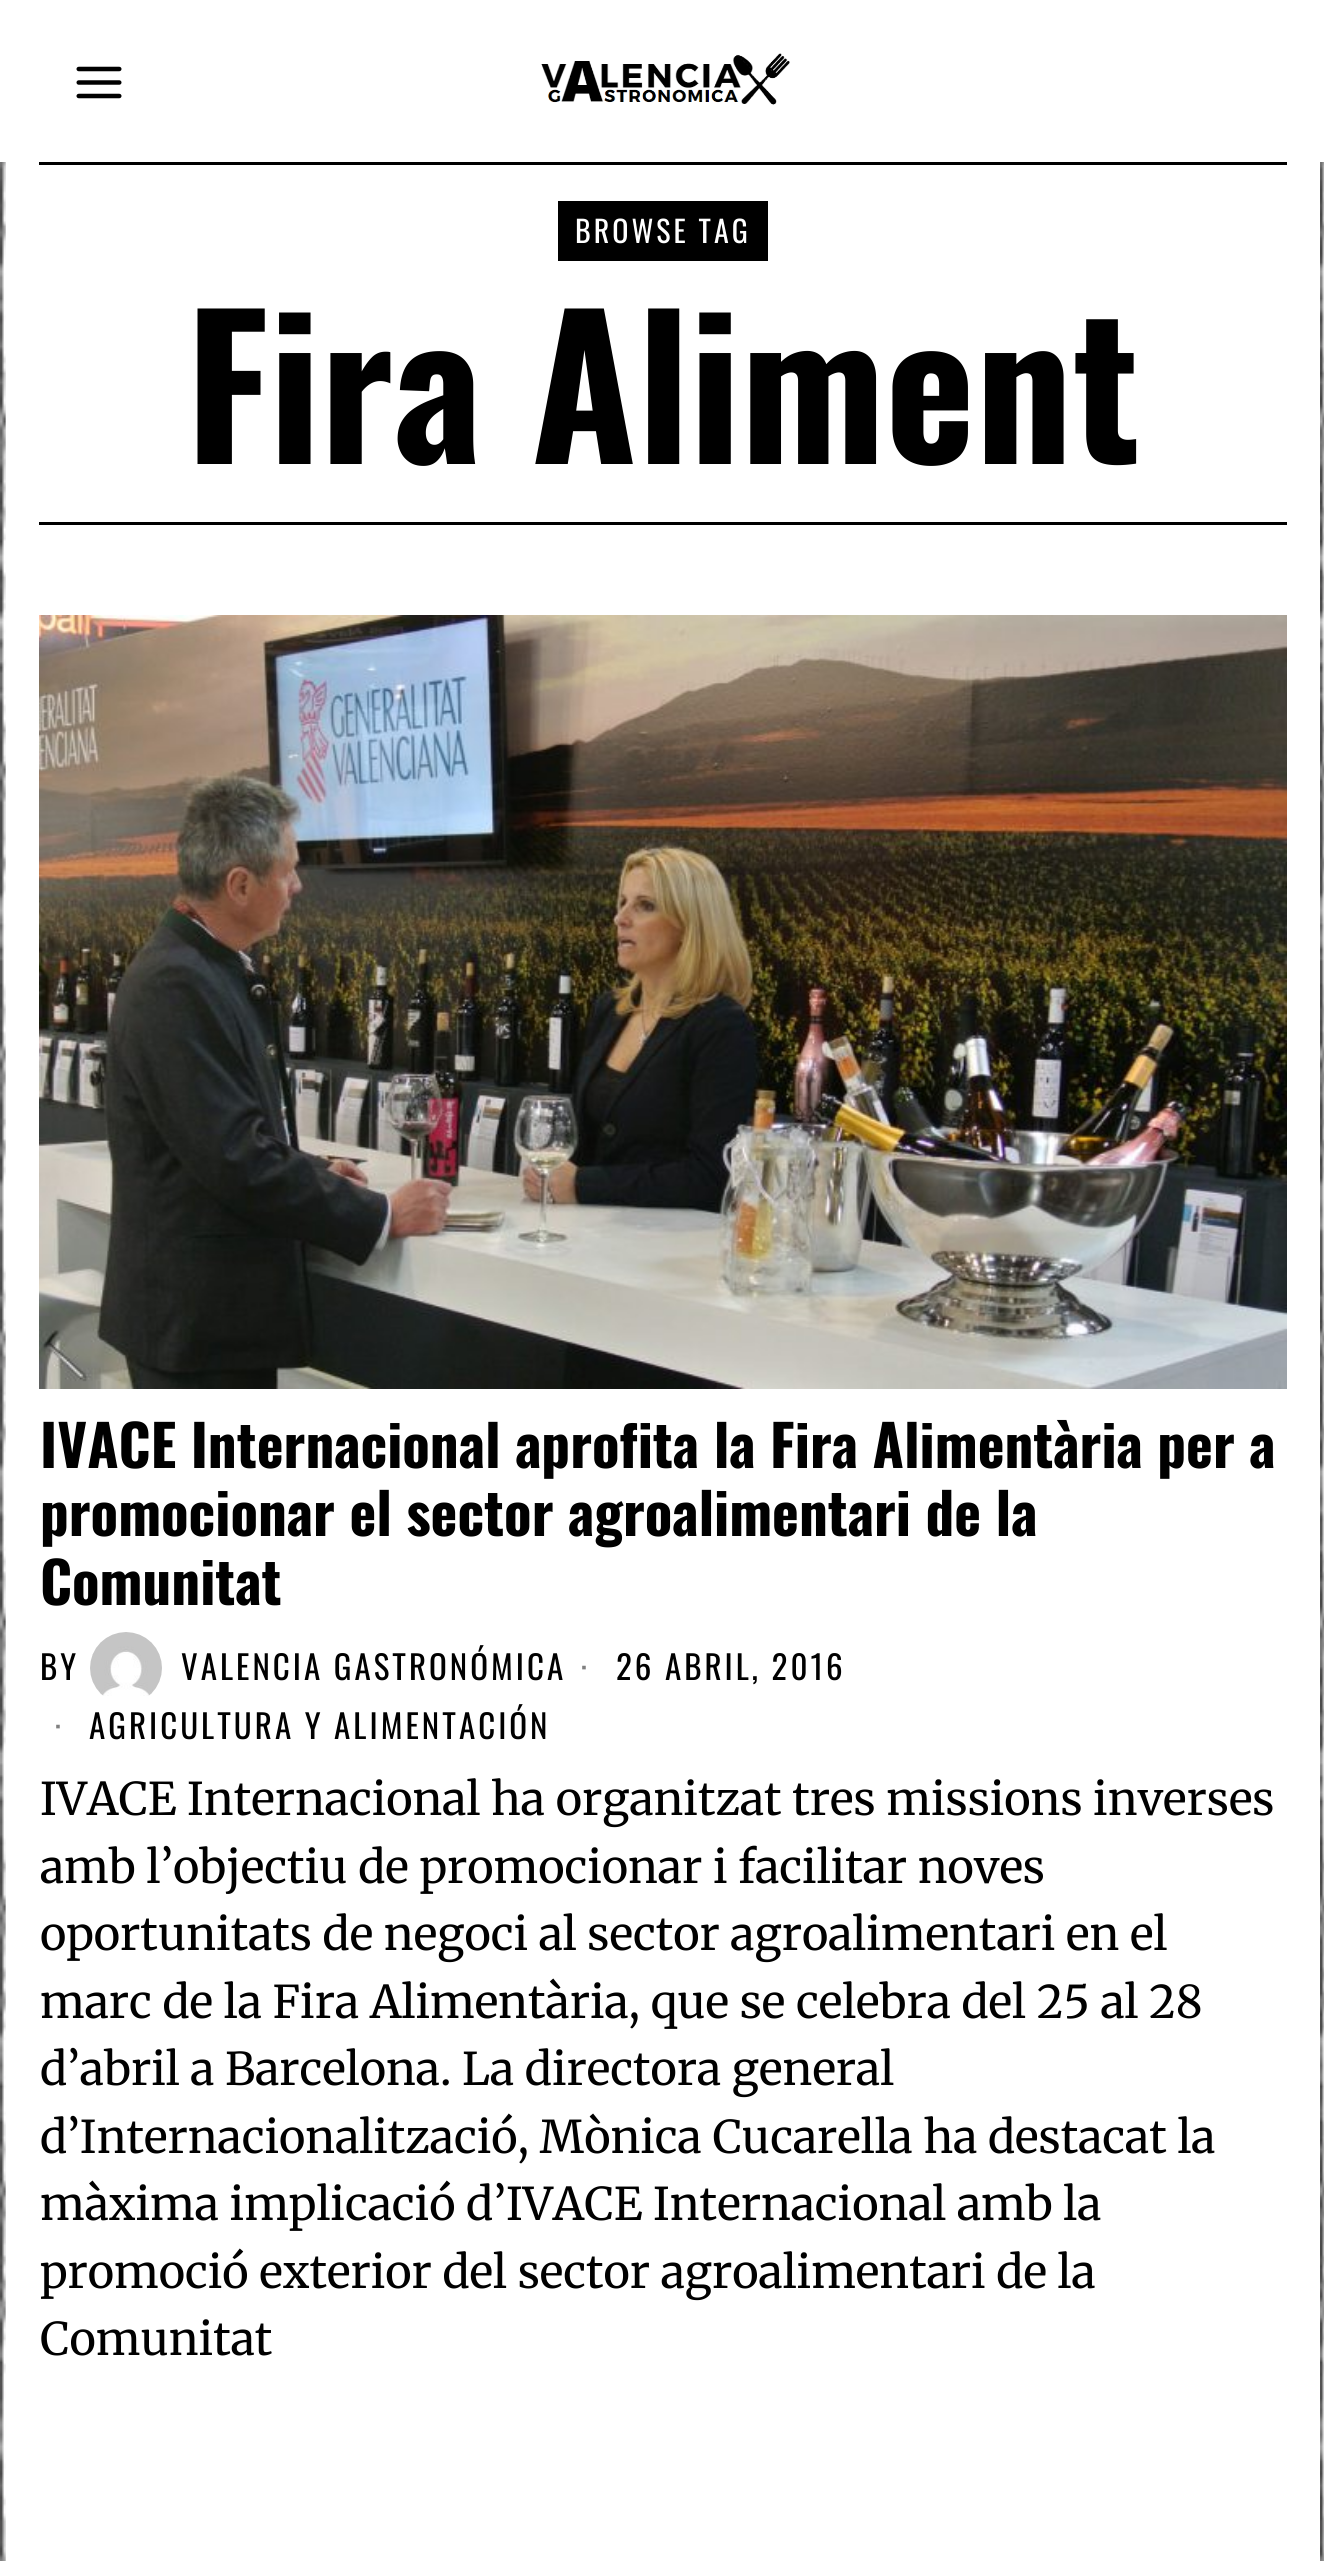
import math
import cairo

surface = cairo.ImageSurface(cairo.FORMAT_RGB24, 1324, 2561)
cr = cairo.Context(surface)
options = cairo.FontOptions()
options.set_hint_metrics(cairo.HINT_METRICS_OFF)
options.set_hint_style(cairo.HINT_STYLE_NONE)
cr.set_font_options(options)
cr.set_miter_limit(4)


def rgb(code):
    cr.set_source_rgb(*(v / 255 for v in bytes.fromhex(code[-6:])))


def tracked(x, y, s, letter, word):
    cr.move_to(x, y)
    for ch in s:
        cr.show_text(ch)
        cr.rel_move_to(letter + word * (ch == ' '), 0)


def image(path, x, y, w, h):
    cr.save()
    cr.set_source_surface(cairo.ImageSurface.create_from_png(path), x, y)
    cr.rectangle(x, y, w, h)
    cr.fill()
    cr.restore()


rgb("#ffffff")
cr.paint()
image("img/1.png", 76, 66, 46, 33)
image("img/2.png", 541, 53, 249, 52)
image("img/3.png", 0, 162, 6, 2399)
for x, y, w, h, color in [
    (39, 162, 1248, 3, "#000000"),
    (39, 522, 1248, 3, "#000000"),
    (558, 201, 210, 60, "#000000"),
]:
    rgb(color)
    cr.rectangle(x, y, w, h)
    cr.fill()
image("img/4.png", 39, 615, 1248, 774)
image("img/5.png", 90, 1632, 72, 64)
image("img/6.png", 1320, 162, 4, 2399)
cr.select_font_face("Oswald")
cr.set_font_size(30)
rgb("#ffffff")
tracked(575, 243, "BROWSE TAG", 3, 0)
cr.select_font_face("Oswald", cairo.FONT_SLANT_NORMAL, cairo.FONT_WEIGHT_BOLD)
cr.set_font_size(192)
rgb("#000000")
cr.move_to(186, 464)
cr.show_text("Fira Aliment")
cr.set_font_size(57)
for x, y, s in [
    (40, 1468, "IVACE Internacional aprofita la Fira Alimentària per a"),
    (40, 1536, "promocionar el sector agroalimentari de la"),
    (40, 1605, "Comunitat"),
]:
    cr.move_to(x, y)
    cr.show_text(s)
cr.select_font_face("Oswald")
cr.set_font_size(33)
tracked(40, 1680, "BY", 3, 0)
tracked(181, 1680, "VALENCIA GASTRONÓMICA", 3, 0)
rgb("#808080")
tracked(581, 1680, "·", 3, 0)
rgb("#000000")
tracked(616, 1680, "26 ABRIL, 2016", 3, 0)
rgb("#808080")
tracked(55, 1739, "·", 3, 0)
rgb("#000000")
tracked(89, 1739, "AGRICULTURA Y ALIMENTACIÓN", 3, 0)
cr.select_font_face("Merriweather")
cr.set_font_size(45)
for x, y, s in [
    (40, 1815, "IVACE Internacional ha organitzat tres missions inverses"),
    (40, 1883, "amb l’objectiu de promocionar i facilitar noves"),
    (40, 1950, "oportunitats de negoci al sector agroalimentari en el"),
    (40, 2018, "marc de la Fira Alimentària, que se celebra del 25 al 28"),
    (40, 2085, "d’abril a Barcelona. La directora general"),
    (40, 2153, "d’Internacionalització, Mònica Cucarella ha destacat la"),
    (40, 2220, "màxima implicació d’IVACE Internacional amb la"),
    (40, 2288, "promoció exterior del sector agroalimentari de la"),
    (40, 2355, "Comunitat"),
]:
    cr.move_to(x, y)
    cr.show_text(s)
surface.write_to_png("page.png")
